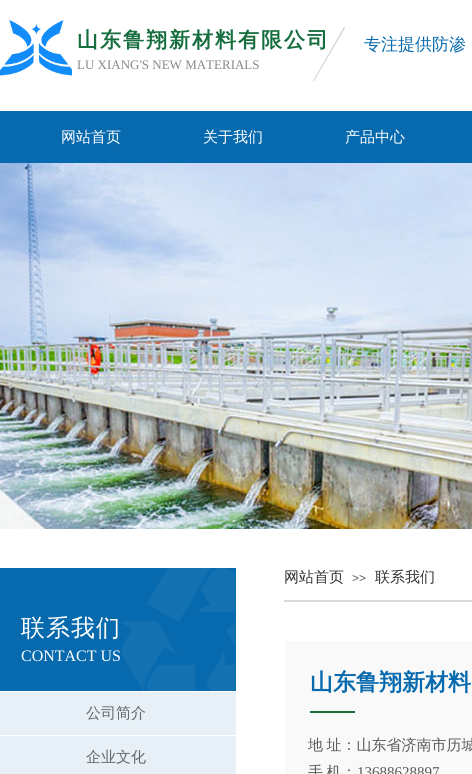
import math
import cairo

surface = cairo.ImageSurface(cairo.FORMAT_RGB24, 472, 774)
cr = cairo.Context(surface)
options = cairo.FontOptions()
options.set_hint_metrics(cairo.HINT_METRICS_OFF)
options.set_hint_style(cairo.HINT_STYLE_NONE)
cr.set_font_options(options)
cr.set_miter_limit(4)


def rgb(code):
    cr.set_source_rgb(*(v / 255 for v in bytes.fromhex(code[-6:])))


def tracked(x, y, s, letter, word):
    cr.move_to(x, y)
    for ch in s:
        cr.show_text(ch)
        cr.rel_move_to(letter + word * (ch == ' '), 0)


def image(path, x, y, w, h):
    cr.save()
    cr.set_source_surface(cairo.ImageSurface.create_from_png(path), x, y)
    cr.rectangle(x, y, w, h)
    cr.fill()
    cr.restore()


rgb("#ffffff")
cr.paint()
image("img/1.png", 0, 20, 72, 56)
rgb("#d0d0d0")
cr.new_path()
cr.move_to(344, 27)
cr.line_to(345, 28)
cr.line_to(314, 81)
cr.line_to(313, 81)
cr.close_path()
cr.fill()
rgb("#076aae")
cr.rectangle(0, 111, 472, 52)
cr.fill()
image("img/2.png", 0, 163, 472, 366)
rgb("#d9d9d9")
cr.rectangle(284, 600, 188, 2)
cr.fill()
rgb("#076aae")
cr.rectangle(0, 568, 236, 123)
cr.fill()
image("img/3.png", 121, 568, 114, 123)
for x, y, w, h, color in [
    (285, 641, 187, 133, "#f9f9f9"),
    (0, 692, 236, 43, "#e6f0f6"),
    (0, 736, 236, 38, "#e6f0f6"),
    (310, 711, 45, 2, "#166e3e"),
]:
    rgb(color)
    cr.rectangle(x, y, w, h)
    cr.fill()
cr.select_font_face("WenQuanYi Zen Hei", cairo.FONT_SLANT_NORMAL, cairo.FONT_WEIGHT_BOLD)
cr.set_font_size(21)
tracked(77, 47, "山东鲁翔新材料有限公司", 2, 0)
cr.select_font_face("WenQuanYi Zen Hei Medium")
cr.set_font_size(17)
rgb("#076aae")
cr.move_to(364, 50)
cr.show_text("专注提供防渗")
cr.select_font_face("Liberation Serif")
cr.set_font_size(13)
rgb("#888888")
cr.move_to(77, 69)
cr.show_text("LU XIANG'S NEW MATERIALS")
cr.select_font_face("WenQuanYi Zen Hei Medium")
cr.set_font_size(15)
rgb("#ffffff")
for x, y, s in [
    (61, 142, "网站首页"),
    (203, 142, "关于我们"),
    (345, 142, "产品中心"),
]:
    cr.move_to(x, y)
    cr.show_text(s)
rgb("#333333")
cr.move_to(284, 582)
cr.show_text("网站首页")
cr.select_font_face("Liberation Sans")
cr.set_font_size(12)
rgb("#5a5a5a")
cr.move_to(352, 582)
cr.show_text(">>")
cr.select_font_face("WenQuanYi Zen Hei Medium")
cr.set_font_size(15)
rgb("#333333")
cr.move_to(375, 582)
cr.show_text("联系我们")
cr.set_font_size(24)
rgb("#ffffff")
tracked(21, 636, "联系我们", 1, 0)
cr.select_font_face("Liberation Serif")
cr.set_font_size(16)
cr.move_to(21, 661)
cr.show_text("CONTACT US")
cr.select_font_face("WenQuanYi Zen Hei", cairo.FONT_SLANT_NORMAL, cairo.FONT_WEIGHT_BOLD)
cr.set_font_size(23)
rgb("#076aae")
cr.move_to(310, 690)
cr.show_text("山东鲁翔新材料")
cr.select_font_face("WenQuanYi Zen Hei Medium")
cr.set_font_size(15)
rgb("#666666")
cr.move_to(86, 718)
cr.show_text("公司简介")
cr.move_to(86, 762)
cr.show_text("企业文化")
rgb("#5a5a5a")
tracked(308, 750, "地 址：山东省济南市历城", 0, -1)
tracked(308, 777, "手 机：", 0, -1)
cr.select_font_face("Liberation Serif")
cr.move_to(357, 777)
cr.show_text("13688628897")
surface.write_to_png("page.png")
